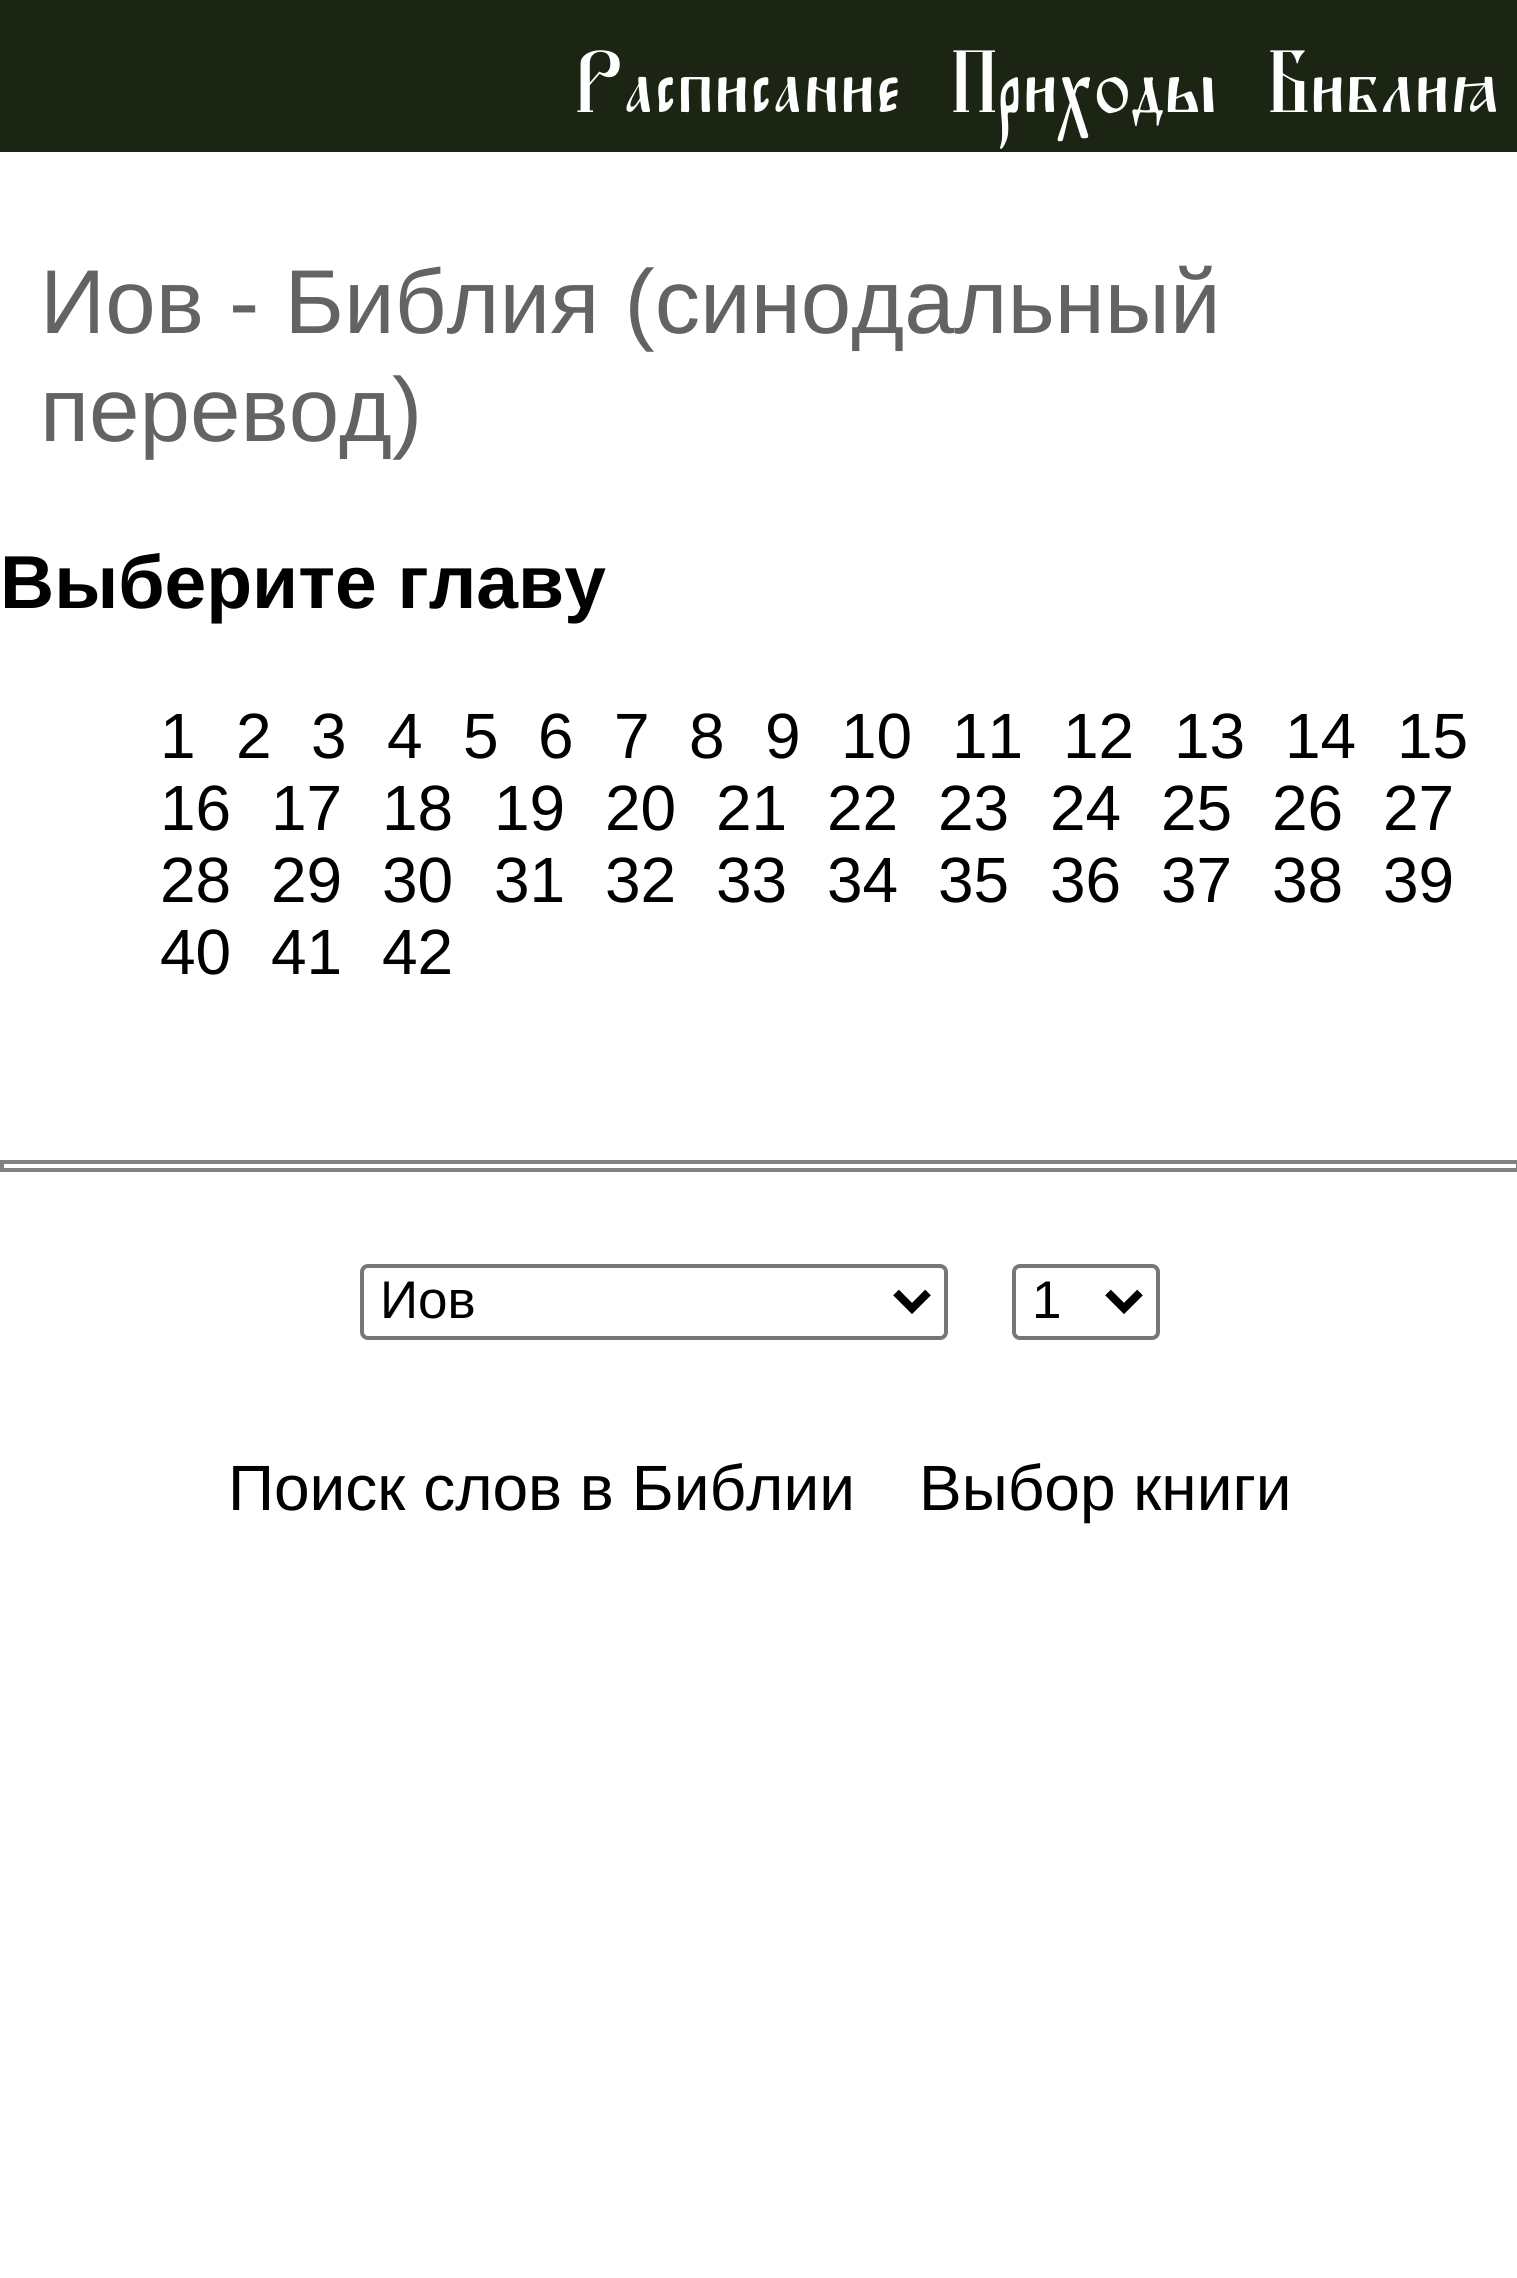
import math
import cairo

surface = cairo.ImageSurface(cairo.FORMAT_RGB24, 1517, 2278)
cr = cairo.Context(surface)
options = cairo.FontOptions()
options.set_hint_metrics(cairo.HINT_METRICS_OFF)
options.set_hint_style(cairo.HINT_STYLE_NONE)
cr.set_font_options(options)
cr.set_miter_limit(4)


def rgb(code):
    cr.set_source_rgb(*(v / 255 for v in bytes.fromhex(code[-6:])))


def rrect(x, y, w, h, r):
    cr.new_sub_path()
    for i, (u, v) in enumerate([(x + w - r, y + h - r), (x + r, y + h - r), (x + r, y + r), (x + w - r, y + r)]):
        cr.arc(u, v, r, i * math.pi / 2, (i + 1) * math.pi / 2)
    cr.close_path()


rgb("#ffffff")
cr.paint()
rgb("#1c2514")
cr.rectangle(0, 0, 1517, 152)
cr.fill()
cr.rectangle(2, 1162, 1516, 8)
rgb("#808080")
cr.set_line_width(4)
cr.stroke()
rrect(362, 1266, 584, 72, 6)
rgb("#767676")
cr.stroke()
cr.new_path()
cr.move_to(896, 1292.5)
cr.line_to(912, 1308.5)
cr.line_to(928, 1292.5)
rgb("#000000")
cr.set_line_width(8)
cr.stroke()
rrect(1014, 1266, 144, 72, 6)
rgb("#767676")
cr.set_line_width(4)
cr.stroke()
cr.new_path()
cr.move_to(1108, 1292.5)
cr.line_to(1124, 1308.5)
cr.line_to(1140, 1292.5)
rgb("#000000")
cr.set_line_width(8)
cr.stroke()
cr.select_font_face("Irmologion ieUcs")
cr.set_font_size(80)
rgb("#ffffff")
for x, y, s in [
    (575, 112, "Расписание"),
    (951, 112, "Приходы"),
    (1268, 112, "Библия"),
]:
    cr.move_to(x, y)
    cr.show_text(s)
cr.select_font_face("Liberation Sans")
cr.set_font_size(90.7)
rgb("#646363")
cr.move_to(40, 333)
cr.show_text("Иов - Библия (синодальный")
cr.move_to(40, 441)
cr.show_text("перевод)")
cr.select_font_face("Liberation Sans", cairo.FONT_SLANT_NORMAL, cairo.FONT_WEIGHT_BOLD)
cr.set_font_size(75)
rgb("#000000")
cr.move_to(0, 608)
cr.show_text("Выберите главу")
cr.select_font_face("Liberation Sans")
cr.set_font_size(64)
for x, y, s in [
    (160, 758, "1"),
    (236, 758, "2"),
    (311, 758, "3"),
    (387, 758, "4"),
    (463, 758, "5"),
    (538, 758, "6"),
    (614, 758, "7"),
    (689, 758, "8"),
    (765, 758, "9"),
    (841, 758, "10"),
    (952, 758, "11"),
    (1063, 758, "12"),
    (1174, 758, "13"),
    (1285, 758, "14"),
    (1397, 758, "15"),
    (160, 830, "16"),
    (271, 830, "17"),
    (382, 830, "18"),
    (494, 830, "19"),
    (605, 830, "20"),
    (716, 830, "21"),
    (827, 830, "22"),
    (938, 830, "23"),
    (1050, 830, "24"),
    (1161, 830, "25"),
    (1272, 830, "26"),
    (1383, 830, "27"),
    (160, 902, "28"),
    (271, 902, "29"),
    (382, 902, "30"),
    (494, 902, "31"),
    (605, 902, "32"),
    (716, 902, "33"),
    (827, 902, "34"),
    (938, 902, "35"),
    (1050, 902, "36"),
    (1161, 902, "37"),
    (1272, 902, "38"),
    (1383, 902, "39"),
    (160, 974, "40"),
    (271, 974, "41"),
    (382, 974, "42"),
]:
    cr.move_to(x, y)
    cr.show_text(s)
cr.set_font_size(53)
cr.move_to(380, 1318)
cr.show_text("Иов")
cr.move_to(1032, 1318)
cr.show_text("1")
cr.set_font_size(64)
cr.move_to(228, 1510)
cr.show_text("Поиск слов в Библии")
cr.move_to(919, 1510)
cr.show_text("Выбор книги")
surface.write_to_png("page.png")
